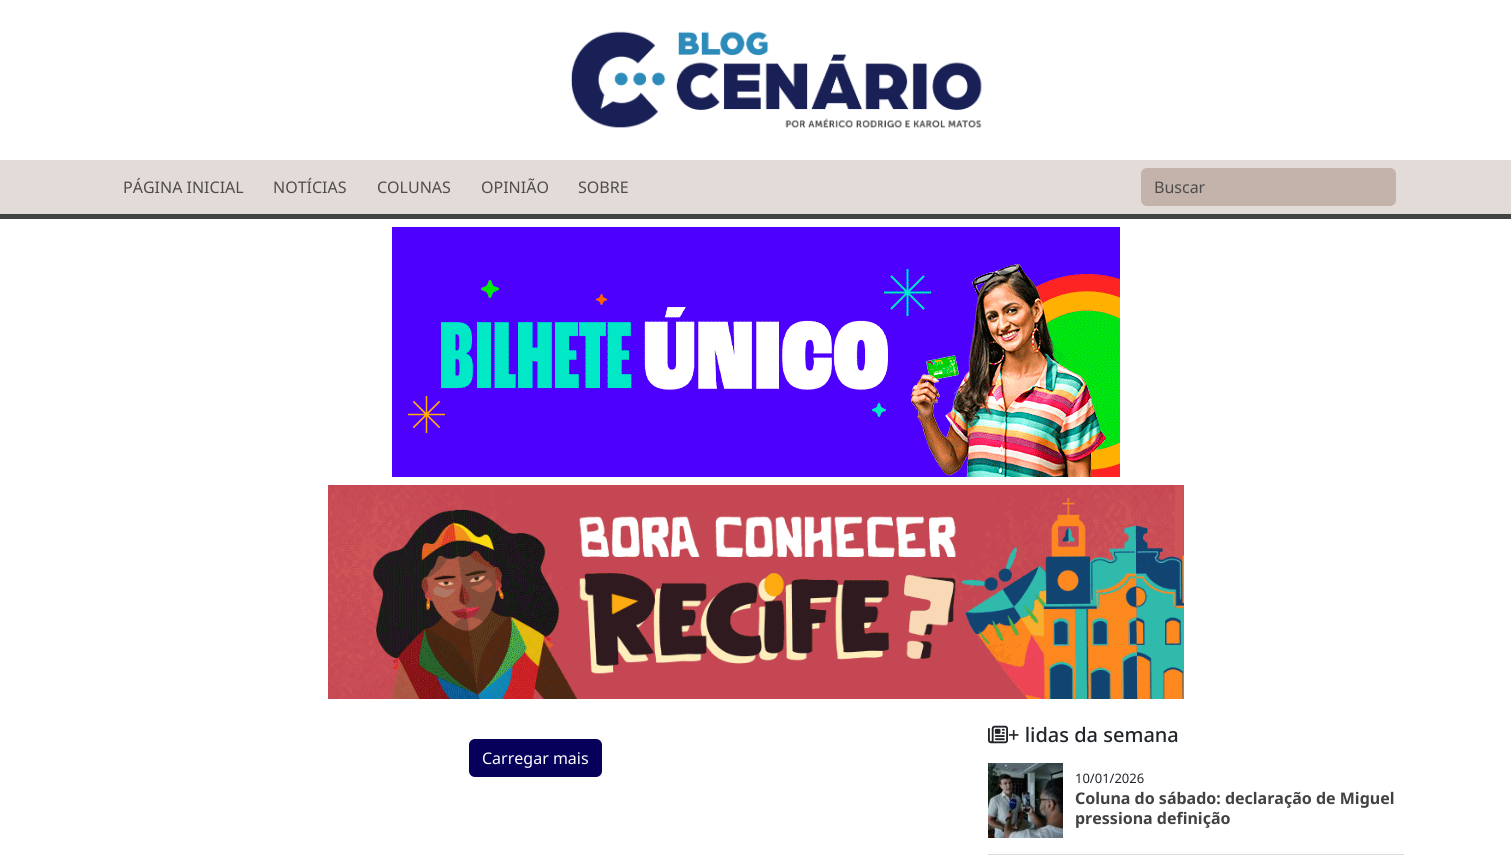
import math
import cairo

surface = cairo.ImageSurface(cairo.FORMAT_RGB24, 1511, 861)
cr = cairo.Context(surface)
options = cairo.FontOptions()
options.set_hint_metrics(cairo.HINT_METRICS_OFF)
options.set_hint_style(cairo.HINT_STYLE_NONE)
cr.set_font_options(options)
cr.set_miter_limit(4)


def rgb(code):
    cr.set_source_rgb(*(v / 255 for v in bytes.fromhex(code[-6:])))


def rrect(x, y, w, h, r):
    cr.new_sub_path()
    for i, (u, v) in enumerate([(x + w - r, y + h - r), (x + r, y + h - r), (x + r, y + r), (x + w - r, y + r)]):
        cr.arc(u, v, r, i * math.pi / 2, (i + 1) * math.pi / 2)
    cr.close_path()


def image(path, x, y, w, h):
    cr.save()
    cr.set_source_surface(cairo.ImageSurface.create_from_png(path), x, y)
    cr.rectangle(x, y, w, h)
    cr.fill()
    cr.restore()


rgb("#ffffff")
cr.paint()
image("img/1.png", 571, 31, 411, 97)
rgb("#e3dbd7")
cr.rectangle(0, 160, 1511, 54)
cr.fill()
rgb("#424242")
cr.rectangle(0, 214, 1511, 5)
cr.fill()
rgb("#c3b3aa")
rrect(1141.5, 168.5, 254, 37, 5.5)
cr.fill_preserve()
cr.set_line_width(1)
cr.stroke()
image("img/2.png", 392, 227, 728, 250)
image("img/3.png", 328, 485, 856, 214)
rgb("#07005b")
rrect(469, 739, 133, 38, 6)
cr.fill()
image("img/4.png", 988, 725, 20, 19)
rgb("#dddddd")
cr.rectangle(988, 854, 416, 1)
cr.fill()
image("img/5.png", 988, 763, 75, 75)
cr.select_font_face("Noto Sans")
cr.set_font_size(16)
rgb("#4f4d4b")
for x, y, s in [
    (123, 193, "PÁGINA INICIAL"),
    (273, 193, "NOTÍCIAS"),
    (377, 193, "COLUNAS"),
    (481, 193, "OPINIÃO"),
    (578, 193, "SOBRE"),
    (1154, 193, "Buscar"),
]:
    cr.move_to(x, y)
    cr.show_text(s)
rgb("#ffffff")
cr.move_to(482, 764)
cr.show_text("Carregar mais")
cr.select_font_face("Noto Sans Medium")
cr.set_font_size(20)
rgb("#212529")
cr.move_to(1008, 742)
cr.show_text("+ lidas da semana")
cr.select_font_face("Noto Sans")
cr.set_font_size(13)
cr.move_to(1075, 783)
cr.show_text("10/01/2026")
cr.select_font_face("Noto Sans", cairo.FONT_SLANT_NORMAL, cairo.FONT_WEIGHT_BOLD)
cr.set_font_size(16)
rgb("#424242")
cr.move_to(1075, 804)
cr.show_text("Coluna do sábado: declaração de Miguel")
cr.move_to(1075, 824)
cr.show_text("pressiona definição")
surface.write_to_png("page.png")
